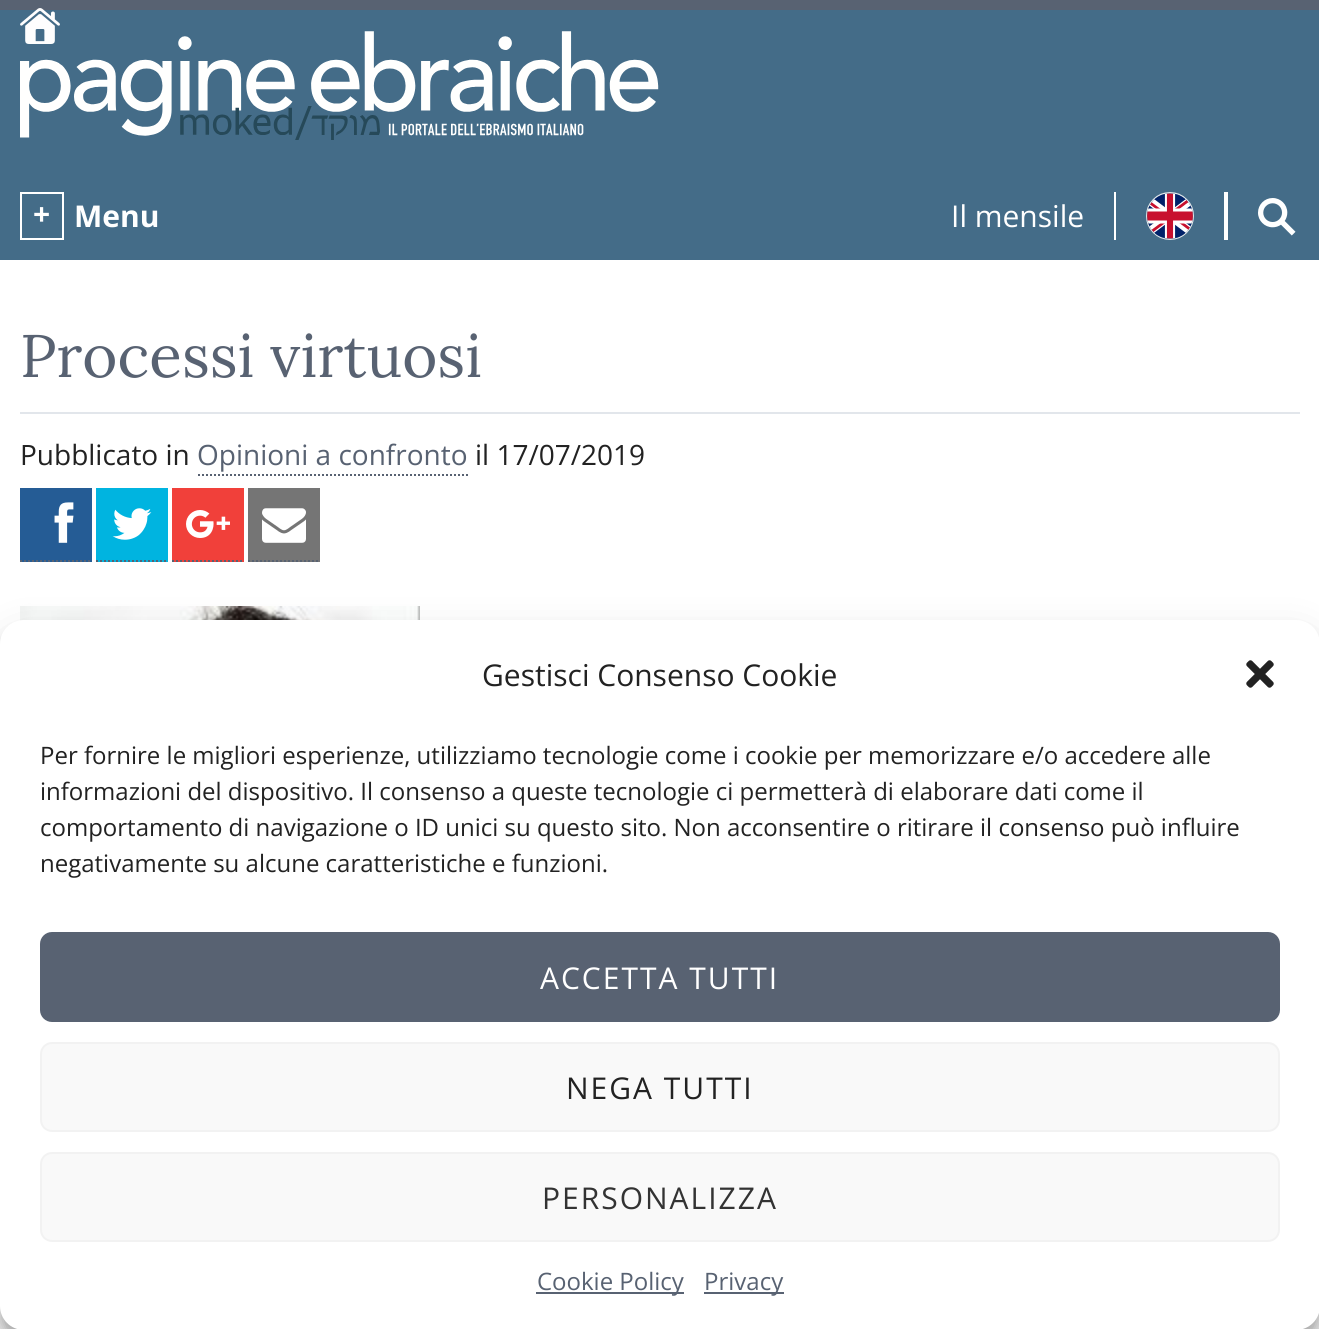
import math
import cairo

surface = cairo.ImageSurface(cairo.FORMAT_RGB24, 1319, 1329)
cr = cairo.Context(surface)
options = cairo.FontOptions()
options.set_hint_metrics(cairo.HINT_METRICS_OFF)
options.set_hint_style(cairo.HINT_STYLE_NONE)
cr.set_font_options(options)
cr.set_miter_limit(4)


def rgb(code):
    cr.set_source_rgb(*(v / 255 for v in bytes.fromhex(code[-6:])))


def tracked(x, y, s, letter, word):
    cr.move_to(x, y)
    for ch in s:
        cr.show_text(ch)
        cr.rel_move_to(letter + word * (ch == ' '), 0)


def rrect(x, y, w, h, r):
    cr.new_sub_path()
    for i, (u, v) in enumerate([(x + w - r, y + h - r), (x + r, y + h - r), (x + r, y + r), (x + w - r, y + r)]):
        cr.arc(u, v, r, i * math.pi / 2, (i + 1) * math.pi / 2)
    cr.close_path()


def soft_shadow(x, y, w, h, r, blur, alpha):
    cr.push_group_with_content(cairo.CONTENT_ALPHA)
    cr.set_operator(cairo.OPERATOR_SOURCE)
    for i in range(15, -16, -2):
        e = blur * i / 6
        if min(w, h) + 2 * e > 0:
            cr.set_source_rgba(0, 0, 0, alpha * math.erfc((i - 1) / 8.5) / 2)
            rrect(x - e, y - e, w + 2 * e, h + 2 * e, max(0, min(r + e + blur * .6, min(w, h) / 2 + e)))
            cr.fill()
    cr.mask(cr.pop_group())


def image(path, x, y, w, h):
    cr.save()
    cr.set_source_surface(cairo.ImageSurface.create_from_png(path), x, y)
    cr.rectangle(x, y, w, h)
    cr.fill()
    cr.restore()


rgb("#ffffff")
cr.paint()
rgb("#586272")
cr.rectangle(0, 0, 1319, 10)
cr.fill()
rgb("#446c88")
cr.rectangle(0, 10, 1319, 250)
cr.fill()
image("img/2.png", 20, 31, 639, 109)
image("img/1.png", 20, 8, 40, 36)
cr.rectangle(21, 193, 42, 46)
rgb("#ffffff")
cr.stroke()
cr.rectangle(1114, 192, 2, 48)
cr.fill()
image("img/3.png", 1146, 192, 48, 48)
cr.rectangle(1224, 192, 4, 48)
cr.fill()
image("img/4.png", 1258, 198, 38, 38)
rgb("#e2e6eb")
cr.rectangle(20, 412, 1280, 2)
cr.fill()
cr.new_path()
cr.move_to(198, 475)
cr.line_to(468, 475)
rgb("#586272")
cr.set_dash([2, 2])
cr.stroke()
rgb("#255c95")
cr.rectangle(20, 488, 72, 74)
cr.fill()
cr.new_path()
cr.move_to(20, 561)
cr.line_to(92, 561)
rgb("#586272")
cr.stroke()
image("img/5.png", 54, 502, 20, 41)
rgb("#00b4e0")
cr.rectangle(96, 488, 72, 74)
cr.fill()
cr.new_path()
cr.move_to(96, 561)
cr.line_to(168, 561)
rgb("#586272")
cr.stroke()
image("img/6.png", 112, 508, 40, 32)
rgb("#f1403a")
cr.rectangle(172, 488, 72, 74)
cr.fill()
cr.new_path()
cr.move_to(172, 561)
cr.line_to(244, 561)
rgb("#586272")
cr.stroke()
image("img/7.png", 186, 510, 44, 28)
rgb("#757575")
cr.rectangle(248, 488, 72, 74)
cr.fill()
cr.new_path()
cr.move_to(248, 561)
cr.line_to(320, 561)
rgb("#586272")
cr.stroke()
image("img/8.png", 262, 508, 44, 35)
image("img/9.png", 20, 606, 400, 15)
rgb("#000000")
soft_shadow(0, 632, 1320, 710, 24, 6, 0.23)
soft_shadow(0, 640, 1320, 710, 24, 20, 0.19)
rgb("#ffffff")
rrect(0, 620, 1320, 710, 24)
cr.fill()
image("img/10.png", 1246, 660, 28, 28)
rgb("#586272")
rrect(41, 933, 1238, 88, 11)
cr.fill_preserve()
cr.set_dash([])
cr.stroke()
rgb("#f9f9f9")
rrect(41, 1043, 1238, 88, 11)
cr.fill_preserve()
rgb("#f2f2f2")
cr.stroke()
rgb("#f9f9f9")
rrect(41, 1153, 1238, 88, 11)
cr.fill_preserve()
rgb("#f2f2f2")
cr.stroke()
rgb("#586272")
cr.rectangle(536, 1292, 148, 2)
cr.fill()
cr.rectangle(704, 1292, 80, 2)
cr.fill()
cr.select_font_face("Open Sans", cairo.FONT_SLANT_NORMAL, cairo.FONT_WEIGHT_BOLD)
cr.set_font_size(30)
rgb("#ffffff")
cr.move_to(33, 225)
cr.show_text("+")
cr.move_to(74, 227)
cr.show_text("Menu")
cr.select_font_face("Open Sans")
cr.move_to(951, 227)
cr.show_text("Il mensile")
cr.select_font_face("Lora")
cr.set_font_size(60)
rgb("#586272")
cr.move_to(20, 377)
cr.show_text("Processi virtuosi")
cr.select_font_face("Open Sans")
cr.set_font_size(28)
rgb("#222222")
cr.move_to(20, 465)
cr.show_text("Pubblicato in")
rgb("#586272")
cr.move_to(197, 465)
cr.show_text("Opinioni a confronto")
rgb("#222222")
cr.move_to(475, 465)
cr.show_text("il 17/07/2019")
cr.set_font_size(30)
cr.move_to(482, 686)
cr.show_text("Gestisci Consenso Cookie")
cr.set_font_size(24)
for x, y, s in [
    (40, 764, "Per fornire le migliori esperienze, utilizziamo tecnologie come i cookie per memorizzare e/o accedere alle"),
    (40, 800, "informazioni del dispositivo. Il consenso a queste tecnologie ci permetterà di elaborare dati come il"),
    (40, 836, "comportamento di navigazione o ID unici su questo sito. Non acconsentire o ritirare il consenso può influire"),
    (40, 872, "negativamente su alcune caratteristiche e funzioni."),
]:
    cr.move_to(x, y)
    cr.show_text(s)
cr.set_font_size(30)
rgb("#ffffff")
tracked(540, 989, "ACCETTA TUTTI", 2, 0)
rgb("#222222")
tracked(566, 1099, "NEGA TUTTI", 2, 0)
rgb("#333333")
tracked(542, 1209, "PERSONALIZZA", 2, 0)
cr.set_font_size(24)
rgb("#586272")
cr.move_to(537, 1290)
cr.show_text("Cookie Policy")
cr.move_to(704, 1290)
cr.show_text("Privacy")
surface.write_to_png("page.png")
